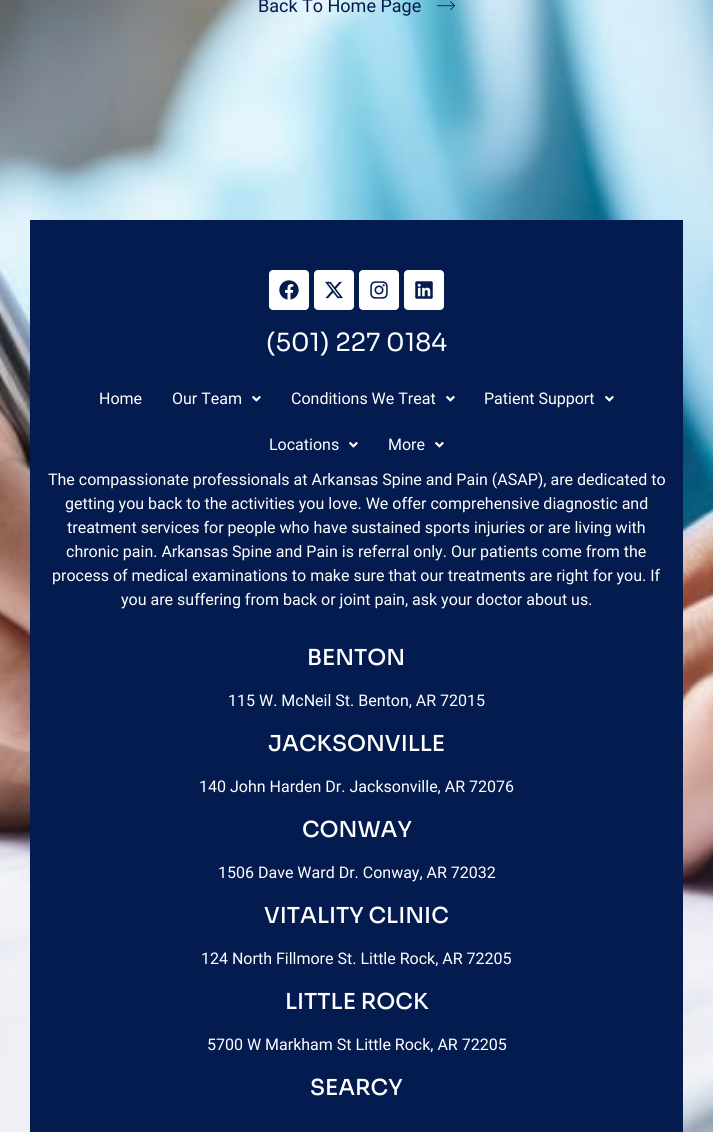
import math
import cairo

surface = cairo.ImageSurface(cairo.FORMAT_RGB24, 713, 1132)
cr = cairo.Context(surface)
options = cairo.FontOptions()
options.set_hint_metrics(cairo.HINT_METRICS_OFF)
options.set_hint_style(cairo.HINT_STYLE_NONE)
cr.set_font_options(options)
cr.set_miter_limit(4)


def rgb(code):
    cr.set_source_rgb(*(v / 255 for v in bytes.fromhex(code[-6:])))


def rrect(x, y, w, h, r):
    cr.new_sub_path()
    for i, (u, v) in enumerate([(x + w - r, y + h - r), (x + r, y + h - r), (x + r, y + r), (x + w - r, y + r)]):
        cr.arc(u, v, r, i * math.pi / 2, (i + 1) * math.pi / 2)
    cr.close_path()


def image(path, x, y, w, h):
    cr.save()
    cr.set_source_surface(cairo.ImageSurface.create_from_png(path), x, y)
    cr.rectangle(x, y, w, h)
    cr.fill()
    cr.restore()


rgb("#ffffff")
cr.paint()
image("img/1.png", 0, 0, 713, 1132)
image("img/2.png", 437, 1, 18, 10)
rgb("#031b4e")
cr.rectangle(30, 220, 653, 912)
cr.fill()
rgb("#ffffff")
rrect(269, 270, 40, 40, 4)
cr.fill()
image("img/3.png", 279, 280, 20, 20)
rrect(314, 270, 40, 40, 4)
cr.fill()
image("img/4.png", 325, 281, 18, 18)
rrect(359, 270, 40, 40, 4)
cr.fill()
image("img/5.png", 370, 281, 18, 18)
rrect(404, 270, 40, 40, 4)
cr.fill()
image("img/6.png", 415, 281, 18, 18)
image("img/7.png", 252, 396, 9, 6)
image("img/7.png", 446, 396, 9, 6)
image("img/7.png", 605, 396, 9, 6)
image("img/7.png", 349, 442, 9, 6)
image("img/7.png", 435, 442, 9, 6)
cr.select_font_face("Roboto")
cr.set_font_size(18)
rgb("#031b4e")
cr.move_to(258, 12)
cr.show_text("Back To Home Page")
cr.select_font_face("Sora")
cr.set_font_size(25)
rgb("#ffffff")
cr.move_to(266, 351)
cr.show_text("(501) 227 0184")
cr.select_font_face("Roboto")
cr.set_font_size(16)
for x, y, s in [
    (99, 404, "Home"),
    (172, 404, "Our Team"),
    (291, 404, "Conditions We Treat"),
    (484, 404, "Patient Support"),
    (269, 450, "Locations"),
    (388, 450, "More"),
    (48, 485, "The compassionate professionals at Arkansas Spine and Pain (ASAP), are dedicated to"),
    (65, 509, "getting you back to the activities you love. We offer comprehensive diagnostic and"),
    (67, 533, "treatment services for people who have sustained sports injuries or are living with"),
    (66, 557, "chronic pain. Arkansas Spine and Pain is referral only. Our patients come from the"),
    (52, 581, "process of medical examinations to make sure that our treatments are right for you. If"),
    (121, 605, "you are suffering from back or joint pain, ask your doctor about us."),
]:
    cr.move_to(x, y)
    cr.show_text(s)
cr.select_font_face("Sora Medium")
cr.set_font_size(22)
cr.move_to(307, 665)
cr.show_text("BENTON")
cr.select_font_face("Roboto")
cr.set_font_size(16)
cr.move_to(228, 706)
cr.show_text("115 W. McNeil St. Benton, AR 72015")
cr.select_font_face("Sora Medium")
cr.set_font_size(22)
cr.move_to(268, 751)
cr.show_text("JACKSONVILLE")
cr.select_font_face("Roboto")
cr.set_font_size(16)
cr.move_to(199, 792)
cr.show_text("140 John Harden Dr. Jacksonville, AR 72076")
cr.select_font_face("Sora Medium")
cr.set_font_size(22)
cr.move_to(302, 837)
cr.show_text("CONWAY")
cr.select_font_face("Roboto")
cr.set_font_size(16)
cr.move_to(218, 878)
cr.show_text("1506 Dave Ward Dr. Conway, AR 72032")
cr.select_font_face("Sora Medium")
cr.set_font_size(22)
cr.move_to(264, 923)
cr.show_text("VITALITY CLINIC")
cr.select_font_face("Roboto")
cr.set_font_size(16)
cr.move_to(201, 964)
cr.show_text("124 North Fillmore St. Little Rock, AR 72205")
cr.select_font_face("Sora Medium")
cr.set_font_size(22)
cr.move_to(285, 1009)
cr.show_text("LITTLE ROCK")
cr.select_font_face("Roboto")
cr.set_font_size(16)
cr.move_to(207, 1050)
cr.show_text("5700 W Markham St Little Rock, AR 72205")
cr.select_font_face("Sora Medium")
cr.set_font_size(22)
cr.move_to(310, 1095)
cr.show_text("SEARCY")
surface.write_to_png("page.png")
